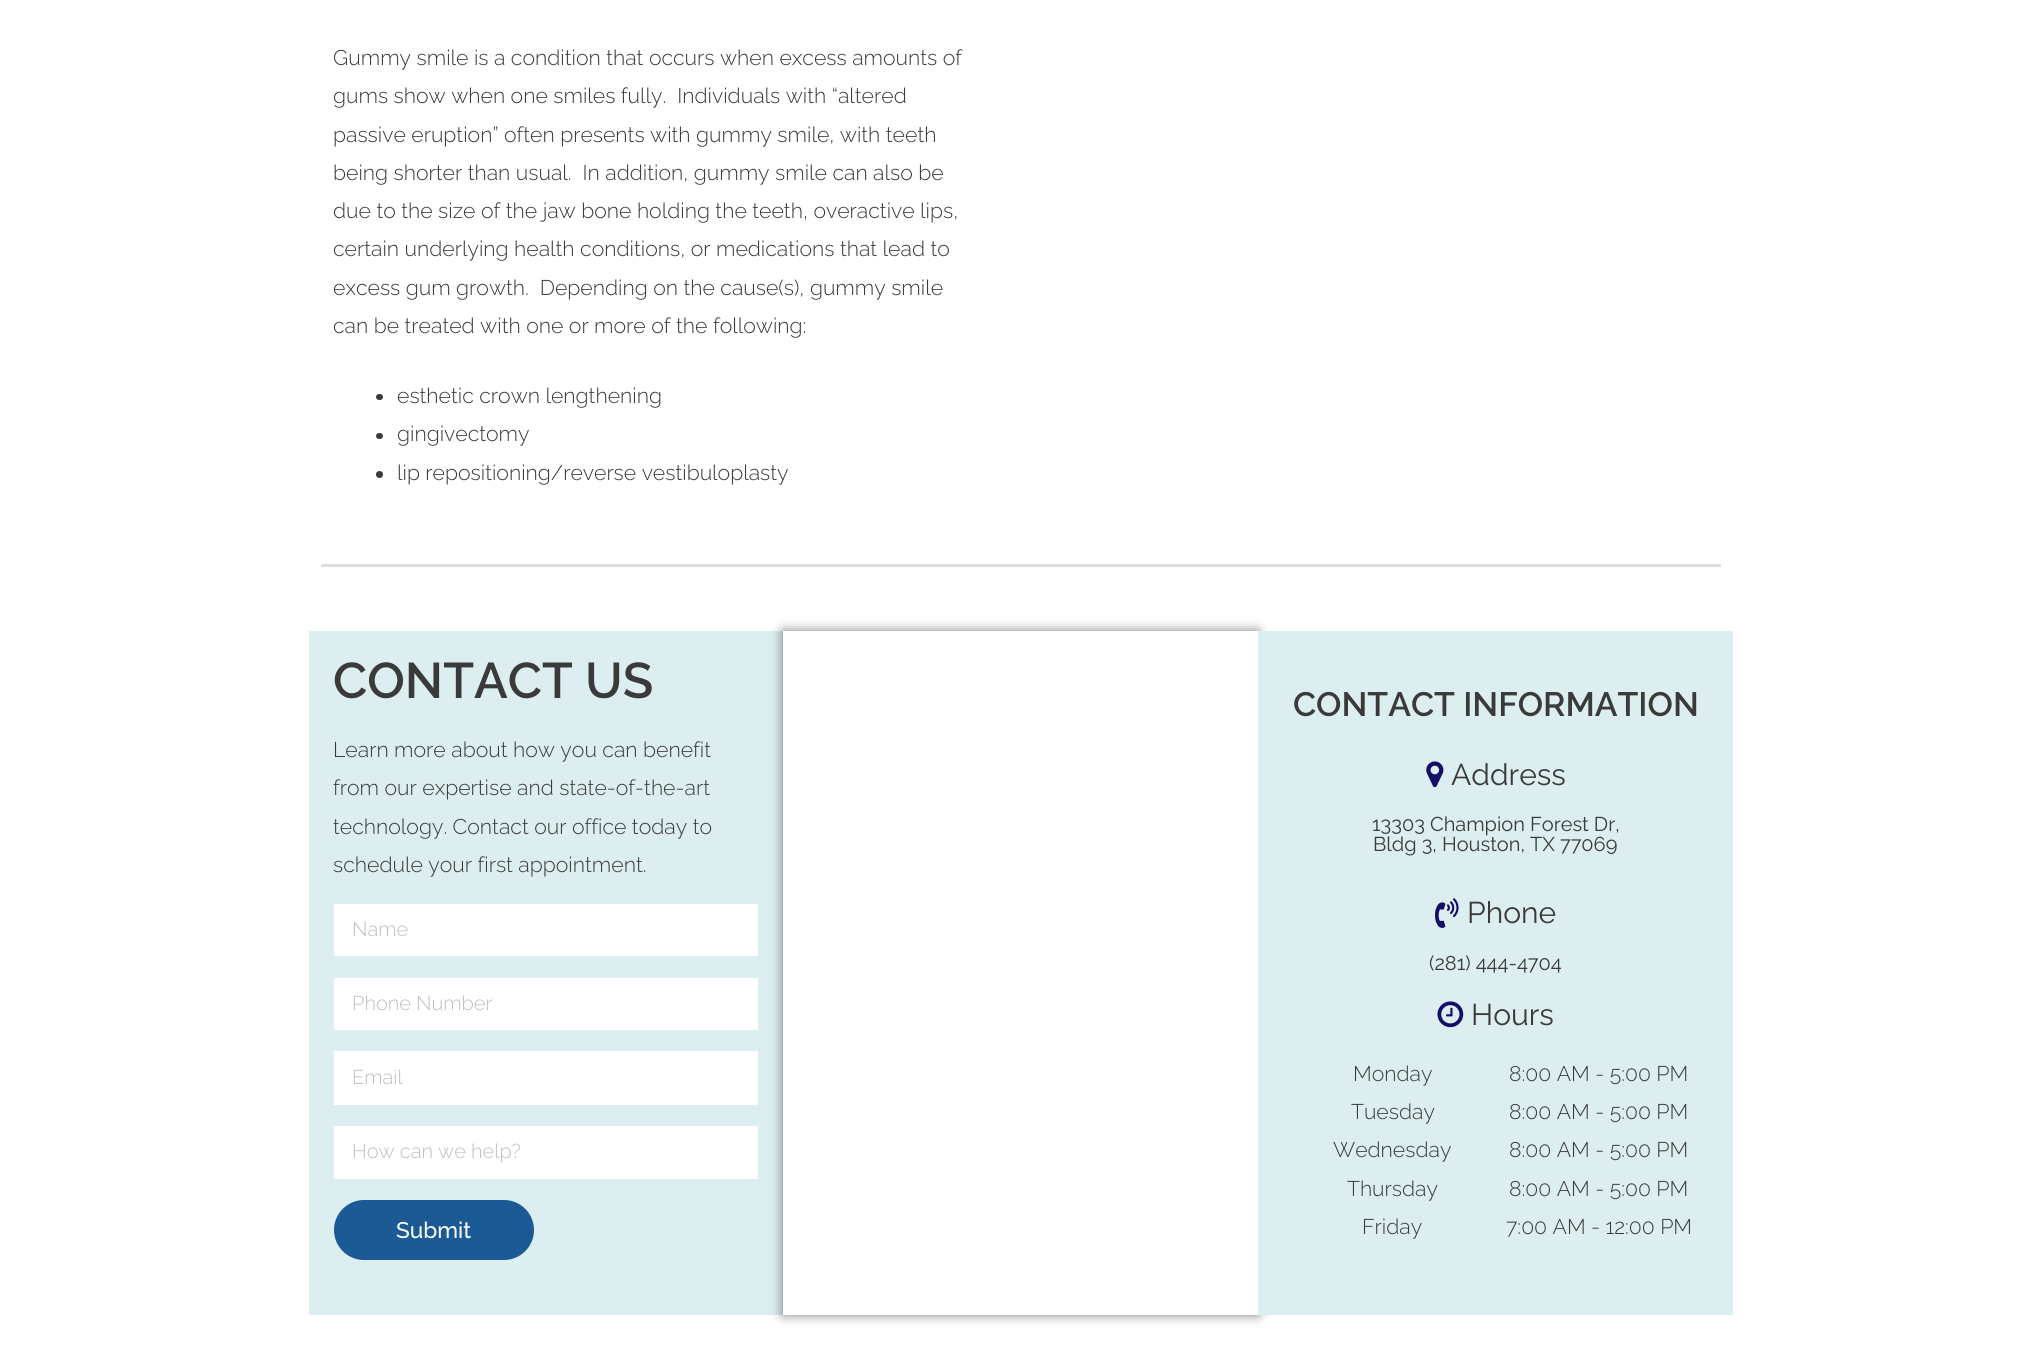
import math
import cairo

surface = cairo.ImageSurface(cairo.FORMAT_RGB24, 2041, 1349)
cr = cairo.Context(surface)
options = cairo.FontOptions()
options.set_hint_metrics(cairo.HINT_METRICS_OFF)
options.set_hint_style(cairo.HINT_STYLE_NONE)
cr.set_font_options(options)
cr.set_miter_limit(4)


def rgb(code):
    cr.set_source_rgb(*(v / 255 for v in bytes.fromhex(code[-6:])))


def rrect(x, y, w, h, r):
    cr.new_sub_path()
    for i, (u, v) in enumerate([(x + w - r, y + h - r), (x + r, y + h - r), (x + r, y + r), (x + w - r, y + r)]):
        cr.arc(u, v, r, i * math.pi / 2, (i + 1) * math.pi / 2)
    cr.close_path()


def soft_shadow(x, y, w, h, r, blur, alpha):
    cr.push_group_with_content(cairo.CONTENT_ALPHA)
    cr.set_operator(cairo.OPERATOR_SOURCE)
    for i in range(15, -16, -2):
        e = blur * i / 6
        if min(w, h) + 2 * e > 0:
            cr.set_source_rgba(0, 0, 0, alpha * math.erfc((i - 1) / 8.5) / 2)
            rrect(x - e, y - e, w + 2 * e, h + 2 * e, max(0, min(r + e + blur * .6, min(w, h) / 2 + e)))
            cr.fill()
    cr.mask(cr.pop_group())


def image(path, x, y, w, h):
    cr.save()
    cr.set_source_surface(cairo.ImageSurface.create_from_png(path), x, y)
    cr.rectangle(x, y, w, h)
    cr.fill()
    cr.restore()


rgb("#ffffff")
cr.paint()
rgb("#3a3a3a")
rrect(376, 394, 7, 6, 3)
cr.fill()
rrect(376, 433, 7, 6, 3)
cr.fill()
cr.arc(379.5, 474.5, 3.5, 0, 2 * math.pi)
cr.fill()
for x, y, w, h, color in [
    (321, 564, 1400, 3, "#dedede"),
    (309, 631, 474, 684, "#dceeef"),
    (334, 904, 424, 52, "#ffffff"),
    (334, 978, 424, 52, "#ffffff"),
    (334, 1051, 424, 54, "#ffffff"),
    (334, 1126, 424, 53, "#ffffff"),
]:
    rgb(color)
    cr.rectangle(x, y, w, h)
    cr.fill()
rgb("#1b5a94")
rrect(334, 1200, 200, 60, 30)
cr.fill()
cr.save()
cr.set_fill_rule(cairo.FILL_RULE_EVEN_ODD)
cr.new_path()
cr.move_to(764, 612)
cr.line_to(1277, 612)
cr.line_to(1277, 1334)
cr.line_to(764, 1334)
cr.close_path()
cr.move_to(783, 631)
cr.line_to(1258, 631)
cr.line_to(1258, 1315)
cr.line_to(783, 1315)
cr.close_path()
cr.clip()
rgb("#000000")
soft_shadow(783, 631, 475, 684, 0, 6, 0.5)
cr.restore()
rgb("#dceeef")
cr.rectangle(1258, 631, 475, 684)
cr.fill()
image("img/1.png", 1426, 761, 18, 27)
image("img/2.png", 1435, 898, 24, 30)
image("img/3.png", 1437, 1001, 27, 27)
cr.select_font_face("Raleway Light")
cr.set_font_size(21.25)
rgb("#3a3a3a")
for x, y, s in [
    (333, 65, "Gummy smile is a condition that occurs when excess amounts of"),
    (333, 103, "gums show when one smiles fully.  Individuals with “altered"),
    (333, 142, "passive eruption” often presents with gummy smile, with teeth"),
    (333, 180, "being shorter than usual.  In addition, gummy smile can also be"),
    (333, 218, "due to the size of the jaw bone holding the teeth, overactive lips,"),
    (333, 256, "certain underlying health conditions, or medications that lead to"),
    (333, 295, "excess gum growth.  Depending on the cause(s), gummy smile"),
    (333, 333, "can be treated with one or more of the following:"),
    (397, 403, "esthetic crown lengthening"),
    (397, 441, "gingivectomy"),
    (397, 480, "lip repositioning/reverse vestibuloplasty"),
]:
    cr.move_to(x, y)
    cr.show_text(s)
cr.select_font_face("Raleway SemiBold")
cr.set_font_size(50)
cr.move_to(333, 698)
cr.show_text("CONTACT US")
cr.select_font_face("Raleway Light")
cr.set_font_size(21.25)
for x, y, s in [
    (333, 757, "Learn more about how you can benefit"),
    (333, 795, "from our expertise and state-of-the-art"),
    (333, 834, "technology. Contact our office today to"),
    (333, 872, "schedule your first appointment."),
]:
    cr.move_to(x, y)
    cr.show_text(s)
cr.set_font_size(20)
rgb("#bfbebe")
for x, y, s in [
    (352, 936, "Name"),
    (352, 1010, "Phone Number"),
    (352, 1084, "Email"),
    (352, 1158, "How can we help?"),
]:
    cr.move_to(x, y)
    cr.show_text(s)
cr.select_font_face("Raleway Medium")
cr.set_font_size(22.5)
rgb("#ffffff")
cr.move_to(396, 1238)
cr.show_text("Submit")
cr.select_font_face("Raleway SemiBold")
cr.set_font_size(33.75)
rgb("#3a3a3a")
cr.move_to(1293, 716)
cr.show_text("CONTACT INFORMATION")
cr.select_font_face("Raleway")
cr.set_font_size(30)
cr.move_to(1451, 785)
cr.show_text("Address")
cr.set_font_size(20)
cr.move_to(1372, 831)
cr.show_text("13303 Champion Forest Dr,")
cr.move_to(1373, 851)
cr.show_text("Bldg 3, Houston, TX 77069")
cr.set_font_size(30)
cr.move_to(1467, 923)
cr.show_text("Phone")
cr.set_font_size(20)
cr.move_to(1429, 970)
cr.show_text("(281) 444-4704")
cr.set_font_size(30)
cr.move_to(1471, 1025)
cr.show_text("Hours")
cr.select_font_face("Raleway Light")
cr.set_font_size(21.25)
for x, y, s in [
    (1353, 1081, "Monday"),
    (1509, 1081, "8:00 AM - 5:00 PM"),
    (1351, 1119, "Tuesday"),
    (1509, 1119, "8:00 AM - 5:00 PM"),
    (1333, 1157, "Wednesday"),
    (1509, 1157, "8:00 AM - 5:00 PM"),
    (1347, 1196, "Thursday"),
    (1509, 1196, "8:00 AM - 5:00 PM"),
    (1362, 1234, "Friday"),
    (1506, 1234, "7:00 AM - 12:00 PM"),
]:
    cr.move_to(x, y)
    cr.show_text(s)
surface.write_to_png("page.png")
